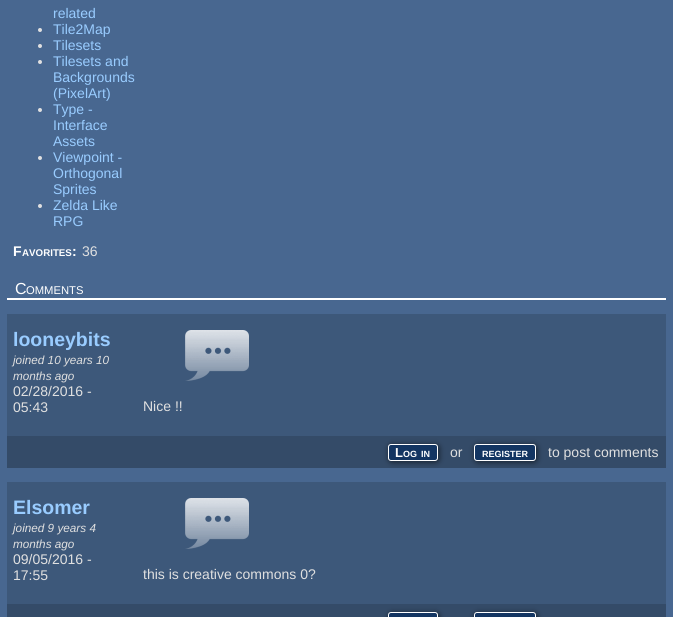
import math
import cairo

surface = cairo.ImageSurface(cairo.FORMAT_RGB24, 673, 617)
cr = cairo.Context(surface)
options = cairo.FontOptions()
options.set_hint_metrics(cairo.HINT_METRICS_OFF)
options.set_hint_style(cairo.HINT_STYLE_NONE)
cr.set_font_options(options)
cr.set_miter_limit(4)


def rgb(code):
    cr.set_source_rgb(*(v / 255 for v in bytes.fromhex(code[-6:])))


def rrect(x, y, w, h, r):
    cr.new_sub_path()
    for i, (u, v) in enumerate([(x + w - r, y + h - r), (x + r, y + h - r), (x + r, y + r), (x + w - r, y + r)]):
        cr.arc(u, v, r, i * math.pi / 2, (i + 1) * math.pi / 2)
    cr.close_path()


def soft_shadow(x, y, w, h, r, blur, alpha):
    cr.push_group_with_content(cairo.CONTENT_ALPHA)
    cr.set_operator(cairo.OPERATOR_SOURCE)
    for i in range(15, -16, -2):
        e = blur * i / 6
        if min(w, h) + 2 * e > 0:
            cr.set_source_rgba(0, 0, 0, alpha * math.erfc((i - 1) / 8.5) / 2)
            rrect(x - e, y - e, w + 2 * e, h + 2 * e, max(0, min(r + e + blur * .6, min(w, h) / 2 + e)))
            cr.fill()
    cr.mask(cr.pop_group())


def image(path, x, y, w, h):
    cr.save()
    cr.set_source_surface(cairo.ImageSurface.create_from_png(path), x, y)
    cr.rectangle(x, y, w, h)
    cr.fill()
    cr.restore()


rgb("#486790")
cr.paint()
rgb("#e0e0e0")
cr.arc(40, 30, 2, 0, 2 * math.pi)
cr.fill()
cr.arc(40, 46, 2, 0, 2 * math.pi)
cr.fill()
cr.arc(40, 62, 2, 0, 2 * math.pi)
cr.fill()
cr.arc(40, 110, 2, 0, 2 * math.pi)
cr.fill()
cr.arc(40, 158, 2, 0, 2 * math.pi)
cr.fill()
cr.arc(40, 206, 2, 0, 2 * math.pi)
cr.fill()
rgb("#ffffff")
cr.rectangle(7, 298, 659, 2)
cr.fill()
rgb("#3d587a")
cr.rectangle(7, 314, 659, 122)
cr.fill()
image("img/1.png", 185, 330, 64, 51)
rgb("#344b68")
cr.rectangle(7, 436, 659, 32)
cr.fill()
rgb("#000000")
soft_shadow(389, 445, 50, 17, 3, 3, 0.6)
rgb("#133562")
rrect(388.5, 444.5, 49, 16, 2.5)
cr.fill_preserve()
rgb("#ffffff")
cr.set_line_width(1)
cr.stroke()
rgb("#000000")
soft_shadow(475, 445, 62, 17, 3, 3, 0.6)
rgb("#133562")
rrect(474.5, 444.5, 61, 16, 2.5)
cr.fill_preserve()
rgb("#ffffff")
cr.stroke()
rgb("#3d587a")
cr.rectangle(7, 482, 659, 122)
cr.fill()
image("img/1.png", 185, 498, 64, 51)
rgb("#344b68")
cr.rectangle(7, 604, 659, 13)
cr.fill()
rgb("#000000")
soft_shadow(389, 613, 50, 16, 3, 3, 0.6)
soft_shadow(475, 613, 62, 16, 3, 3, 0.6)
rgb("#133562")
rrect(388.5, 612.5, 49, 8, 2.5)
cr.fill_preserve()
rgb("#ffffff")
cr.stroke()
rgb("#133562")
rrect(474.5, 612.5, 61, 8, 2.5)
cr.fill_preserve()
rgb("#ffffff")
cr.stroke()
cr.select_font_face("Liberation Sans")
cr.set_font_size(14)
rgb("#99ccff")
for x, y, s in [
    (53, 18, "related"),
    (53, 34, "Tile2Map"),
    (53, 50, "Tilesets"),
    (53, 66, "Tilesets and"),
    (53, 82, "Backgrounds"),
    (53, 98, "(PixelArt)"),
    (53, 114, "Type -"),
    (53, 130, "Interface"),
    (53, 146, "Assets"),
    (53, 162, "Viewpoint -"),
    (53, 178, "Orthogonal"),
    (53, 194, "Sprites"),
    (53, 210, "Zelda Like"),
    (53, 226, "RPG"),
]:
    cr.move_to(x, y)
    cr.show_text(s)
cr.select_font_face("Liberation Sans", cairo.FONT_SLANT_NORMAL, cairo.FONT_WEIGHT_BOLD)
rgb("#ffffff")
cr.move_to(13, 256)
cr.show_text("F")
cr.set_font_size(9.75)
cr.move_to(22, 256)
cr.show_text("AVORITES")
cr.set_font_size(14)
cr.move_to(72, 256)
cr.show_text(":")
cr.select_font_face("Liberation Sans")
rgb("#e0e0e0")
cr.move_to(82, 256)
cr.show_text("36")
cr.set_font_size(16)
rgb("#ffffff")
cr.move_to(15, 294)
cr.show_text("C")
cr.set_font_size(11.25)
cr.move_to(26, 294)
cr.show_text("OMMENTS")
cr.select_font_face("Liberation Sans", cairo.FONT_SLANT_NORMAL, cairo.FONT_WEIGHT_BOLD)
cr.set_font_size(19.5)
rgb("#99ccff")
cr.move_to(13, 346)
cr.show_text("looneybits")
cr.select_font_face("Liberation Sans", cairo.FONT_SLANT_ITALIC)
cr.set_font_size(11.75)
rgb("#e0e0e0")
cr.move_to(13, 364)
cr.show_text("joined 10 years 10")
cr.move_to(13, 380)
cr.show_text("months ago")
cr.select_font_face("Liberation Sans")
cr.set_font_size(14)
for x, y, s in [
    (13, 396, "02/28/2016 -"),
    (13, 412, "05:43"),
    (143, 411, "Nice !!"),
]:
    cr.move_to(x, y)
    cr.show_text(s)
cr.select_font_face("Liberation Sans", cairo.FONT_SLANT_NORMAL, cairo.FONT_WEIGHT_BOLD)
cr.set_font_size(13)
rgb("#ffffff")
cr.move_to(395, 457)
cr.show_text("L")
cr.set_font_size(9)
cr.move_to(403, 457)
cr.show_text("OG")
cr.move_to(421, 457)
cr.show_text("IN")
cr.select_font_face("Liberation Sans")
cr.set_font_size(14)
rgb("#e0e0e0")
cr.move_to(450, 457)
cr.show_text("or")
cr.select_font_face("Liberation Sans", cairo.FONT_SLANT_NORMAL, cairo.FONT_WEIGHT_BOLD)
cr.set_font_size(9)
rgb("#ffffff")
cr.move_to(482, 457)
cr.show_text("REGISTER")
cr.select_font_face("Liberation Sans")
cr.set_font_size(14)
rgb("#e0e0e0")
cr.move_to(548, 457)
cr.show_text("to post comments")
cr.select_font_face("Liberation Sans", cairo.FONT_SLANT_NORMAL, cairo.FONT_WEIGHT_BOLD)
cr.set_font_size(19.5)
rgb("#99ccff")
cr.move_to(13, 514)
cr.show_text("Elsomer")
cr.select_font_face("Liberation Sans", cairo.FONT_SLANT_ITALIC)
cr.set_font_size(11.75)
rgb("#e0e0e0")
cr.move_to(13, 532)
cr.show_text("joined 9 years 4")
cr.move_to(13, 548)
cr.show_text("months ago")
cr.select_font_face("Liberation Sans")
cr.set_font_size(14)
for x, y, s in [
    (13, 564, "09/05/2016 -"),
    (13, 580, "17:55"),
    (143, 579, "this is creative commons 0?"),
]:
    cr.move_to(x, y)
    cr.show_text(s)
surface.write_to_png("page.png")
